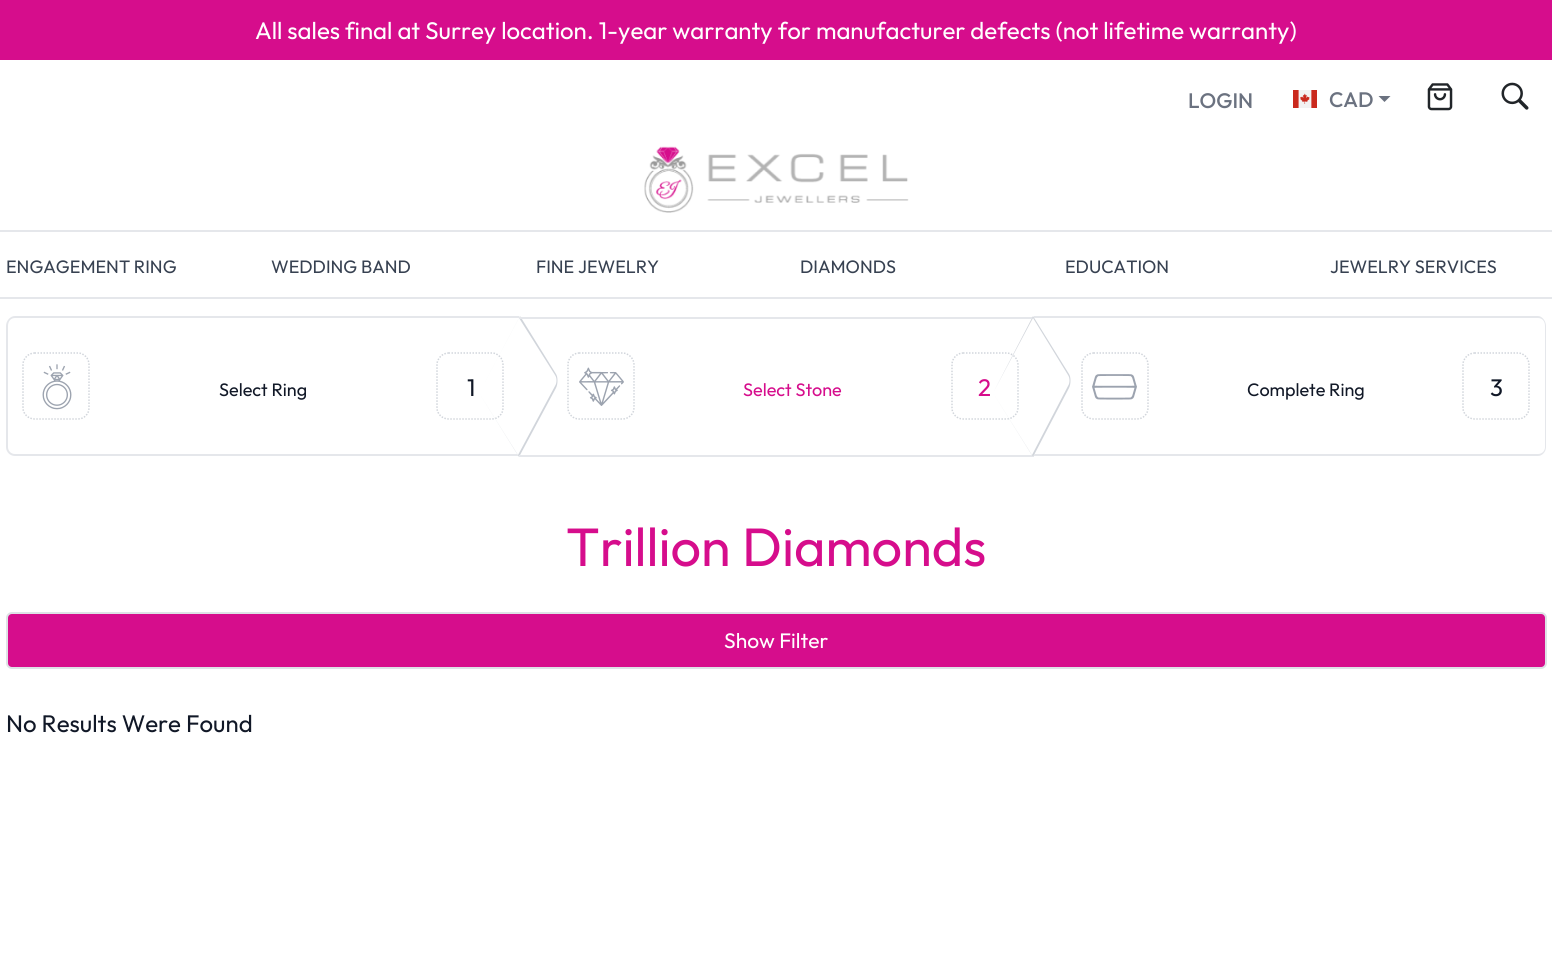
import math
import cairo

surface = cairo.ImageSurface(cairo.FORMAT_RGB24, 1552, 962)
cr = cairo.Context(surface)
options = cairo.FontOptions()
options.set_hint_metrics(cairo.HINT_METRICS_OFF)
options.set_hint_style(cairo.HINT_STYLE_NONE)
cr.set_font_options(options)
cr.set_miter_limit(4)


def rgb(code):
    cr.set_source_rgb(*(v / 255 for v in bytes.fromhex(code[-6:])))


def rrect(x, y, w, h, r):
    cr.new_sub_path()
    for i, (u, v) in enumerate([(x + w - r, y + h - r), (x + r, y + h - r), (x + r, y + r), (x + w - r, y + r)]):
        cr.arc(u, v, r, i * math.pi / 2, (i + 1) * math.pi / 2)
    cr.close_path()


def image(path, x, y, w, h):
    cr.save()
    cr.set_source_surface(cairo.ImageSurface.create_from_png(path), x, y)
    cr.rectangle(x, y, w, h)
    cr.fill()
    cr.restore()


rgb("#ffffff")
cr.paint()
rgb("#e5e7eb")
cr.rectangle(0, 297, 1552, 2)
cr.fill()
rgb("#d60d8c")
cr.rectangle(0, 0, 1552, 60)
cr.fill()
image("img/1.png", 1293, 90, 24, 18)
rgb("#6b7280")
cr.new_path()
cr.move_to(1378.5, 96)
cr.line_to(1390.5, 96)
cr.line_to(1384.5, 102)
cr.close_path()
cr.fill()
image("img/2.png", 1427, 83, 26, 28)
image("img/3.png", 1501, 82, 28, 28)
rgb("#e5e7eb")
cr.rectangle(0, 230, 1552, 2)
cr.fill()
image("img/4.png", 644, 146, 265, 67)
cr.set_fill_rule(cairo.FILL_RULE_EVEN_ODD)
cr.new_path()
cr.move_to(15, 316)
cr.line_to(519, 316)
cr.line_to(519, 456)
cr.line_to(15, 456)
cr.curve_to(10, 456, 6, 452, 6, 447)
cr.line_to(6, 326)
cr.curve_to(6, 321, 10, 316, 15, 316)
cr.close_path()
cr.move_to(15, 318)
cr.line_to(519, 318)
cr.line_to(519, 454)
cr.line_to(15, 454)
cr.curve_to(11, 454, 8, 451, 8, 447)
cr.line_to(8, 326)
cr.curve_to(8, 321, 11, 318, 15, 318)
cr.close_path()
cr.fill()
cr.new_path()
cr.move_to(34.5, 353)
cr.line_to(78, 353)
cr.curve_to(84, 353, 89, 358.5, 89, 364.5)
cr.line_to(89, 408)
cr.curve_to(89, 414, 84, 419, 78, 419)
cr.line_to(34.5, 419)
cr.curve_to(28.5, 419, 23, 414, 23, 408)
cr.line_to(23, 364.5)
cr.curve_to(23, 358.5, 28.5, 353, 34.5, 353)
cr.close_path()
rgb("#d1d5db")
cr.set_line_width(1.5)
cr.set_dash([1.5, 1.5])
cr.stroke()
image("img/5.png", 42, 364, 30, 46)
rgb("#ffffff")
cr.set_fill_rule(cairo.FILL_RULE_WINDING)
cr.new_path()
cr.move_to(520, 316)
cr.line_to(556, 374)
cr.curve_to(558, 377, 558, 384, 556, 388)
cr.line_to(519, 457)
cr.line_to(479, 393)
cr.close_path()
cr.fill()
rgb("#d1d5db")
cr.set_fill_rule(cairo.FILL_RULE_EVEN_ODD)
cr.new_path()
cr.move_to(520, 316)
cr.line_to(556, 374)
cr.curve_to(558, 377, 558, 384, 556, 388)
cr.line_to(519, 457)
cr.line_to(479, 393)
cr.close_path()
cr.move_to(519, 318)
cr.line_to(555, 375)
cr.curve_to(557, 378, 557, 383, 555, 386)
cr.line_to(518, 455)
cr.line_to(479, 393)
cr.close_path()
cr.fill()
cr.new_path()
cr.move_to(448.5, 353)
cr.line_to(492, 353)
cr.curve_to(498, 353, 503, 358.5, 503, 364.5)
cr.line_to(503, 408)
cr.curve_to(503, 414, 498, 419, 492, 419)
cr.line_to(448.5, 419)
cr.curve_to(442.5, 419, 437, 414, 437, 408)
cr.line_to(437, 364.5)
cr.curve_to(437, 358.5, 442.5, 353, 448.5, 353)
cr.close_path()
cr.stroke()
rgb("#e5e7eb")
cr.rectangle(519, 317, 515, 2)
cr.fill()
cr.rectangle(519, 455, 515, 2)
cr.fill()
cr.new_path()
cr.move_to(579, 353)
cr.line_to(622.5, 353)
cr.curve_to(628.5, 353, 634, 358.5, 634, 364.5)
cr.line_to(634, 408)
cr.curve_to(634, 414, 628.5, 419, 622.5, 419)
cr.line_to(579, 419)
cr.curve_to(573, 419, 568, 414, 568, 408)
cr.line_to(568, 364.5)
cr.curve_to(568, 358.5, 573, 353, 579, 353)
cr.close_path()
rgb("#d1d5db")
cr.stroke()
image("img/6.png", 579, 367, 45, 39)
rgb("#ffffff")
cr.set_fill_rule(cairo.FILL_RULE_WINDING)
cr.new_path()
cr.move_to(1033, 316)
cr.line_to(1069, 374)
cr.curve_to(1071, 377, 1071, 384, 1069, 388)
cr.line_to(1033, 457)
cr.line_to(993, 393)
cr.close_path()
cr.fill()
rgb("#d1d5db")
cr.set_fill_rule(cairo.FILL_RULE_EVEN_ODD)
cr.new_path()
cr.move_to(1033, 316)
cr.line_to(1069, 374)
cr.curve_to(1071, 377, 1071, 384, 1069, 388)
cr.line_to(1033, 457)
cr.line_to(993, 393)
cr.close_path()
cr.move_to(1033, 318)
cr.line_to(1068, 375)
cr.curve_to(1070, 378, 1070, 383, 1068, 386)
cr.line_to(1032, 455)
cr.line_to(993, 393)
cr.close_path()
cr.fill()
cr.new_path()
cr.move_to(963, 353)
cr.line_to(1006.5, 353)
cr.curve_to(1012.5, 353, 1018, 358.5, 1018, 364.5)
cr.line_to(1018, 408)
cr.curve_to(1018, 414, 1012.5, 419, 1006.5, 419)
cr.line_to(963, 419)
cr.curve_to(957, 419, 952, 414, 952, 408)
cr.line_to(952, 364.5)
cr.curve_to(952, 358.5, 957, 353, 963, 353)
cr.close_path()
cr.stroke()
rgb("#e5e7eb")
cr.new_path()
cr.move_to(1034, 316)
cr.line_to(1538, 316)
cr.curve_to(1542, 316, 1546, 321, 1546, 326)
cr.line_to(1546, 447)
cr.curve_to(1546, 452, 1542, 456, 1538, 456)
cr.line_to(1034, 456)
cr.close_path()
cr.move_to(1034, 318)
cr.line_to(1538, 318)
cr.curve_to(1542, 318, 1545, 321, 1545, 326)
cr.line_to(1545, 447)
cr.curve_to(1545, 451, 1542, 454, 1538, 454)
cr.line_to(1034, 454)
cr.close_path()
cr.fill()
cr.new_path()
cr.move_to(1093.5, 353)
cr.line_to(1137, 353)
cr.curve_to(1143, 353, 1148, 358.5, 1148, 364.5)
cr.line_to(1148, 408)
cr.curve_to(1148, 414, 1143, 419, 1137, 419)
cr.line_to(1093.5, 419)
cr.curve_to(1087.5, 419, 1082, 414, 1082, 408)
cr.line_to(1082, 364.5)
cr.curve_to(1082, 358.5, 1087.5, 353, 1093.5, 353)
cr.close_path()
rgb("#d1d5db")
cr.stroke()
image("img/7.png", 1092, 374, 45, 26)
cr.new_path()
cr.move_to(1474.5, 353)
cr.line_to(1518, 353)
cr.curve_to(1524, 353, 1529, 358.5, 1529, 364.5)
cr.line_to(1529, 408)
cr.curve_to(1529, 414, 1524, 419, 1518, 419)
cr.line_to(1474.5, 419)
cr.curve_to(1468.5, 419, 1463, 414, 1463, 408)
cr.line_to(1463, 364.5)
cr.curve_to(1463, 358.5, 1468.5, 353, 1474.5, 353)
cr.close_path()
cr.stroke()
rgb("#d60d8c")
rrect(7, 613, 1539, 55, 5)
cr.fill_preserve()
rgb("#dee2e6")
cr.set_line_width(2)
cr.set_dash([])
cr.stroke()
cr.select_font_face("Outfit")
cr.set_font_size(24)
rgb("#ffffff")
cr.move_to(255, 39)
cr.show_text("All sales final at Surrey location. 1-year warranty for manufacturer defects (not lifetime warranty)")
cr.select_font_face("Outfit Medium")
cr.set_font_size(21)
rgb("#6b7280")
cr.move_to(1188, 108)
cr.show_text("LOGIN")
cr.move_to(1329, 107)
cr.show_text("CAD")
cr.select_font_face("Outfit")
cr.set_font_size(18)
rgb("#374151")
for x, y, s in [
    (6, 273, "ENGAGEMENT RING"),
    (271, 273, "WEDDING BAND"),
    (536, 273, "FINE JEWELRY"),
    (800, 273, "DIAMONDS"),
    (1065, 273, "EDUCATION"),
    (1330, 273, "JEWELRY SERVICES"),
]:
    cr.move_to(x, y)
    cr.show_text(s)
rgb("#111827")
cr.move_to(219, 396)
cr.show_text("Select Ring")
cr.set_font_size(24)
cr.move_to(467, 396)
cr.show_text("1")
cr.set_font_size(18)
rgb("#d60d8c")
cr.move_to(743, 396)
cr.show_text("Select Stone")
cr.set_font_size(24)
cr.move_to(978, 396)
cr.show_text("2")
cr.set_font_size(18)
rgb("#111827")
cr.move_to(1247, 396)
cr.show_text("Complete Ring")
cr.set_font_size(24)
cr.move_to(1490, 396)
cr.show_text("3")
cr.set_font_size(54)
rgb("#d60d8c")
cr.move_to(566, 566)
cr.show_text("Trillion Diamonds")
cr.set_font_size(21)
rgb("#ffffff")
cr.move_to(724, 648)
cr.show_text("Show Filter")
cr.set_font_size(24)
rgb("#111827")
cr.move_to(6, 732)
cr.show_text("No Results Were Found")
surface.write_to_png("page.png")
